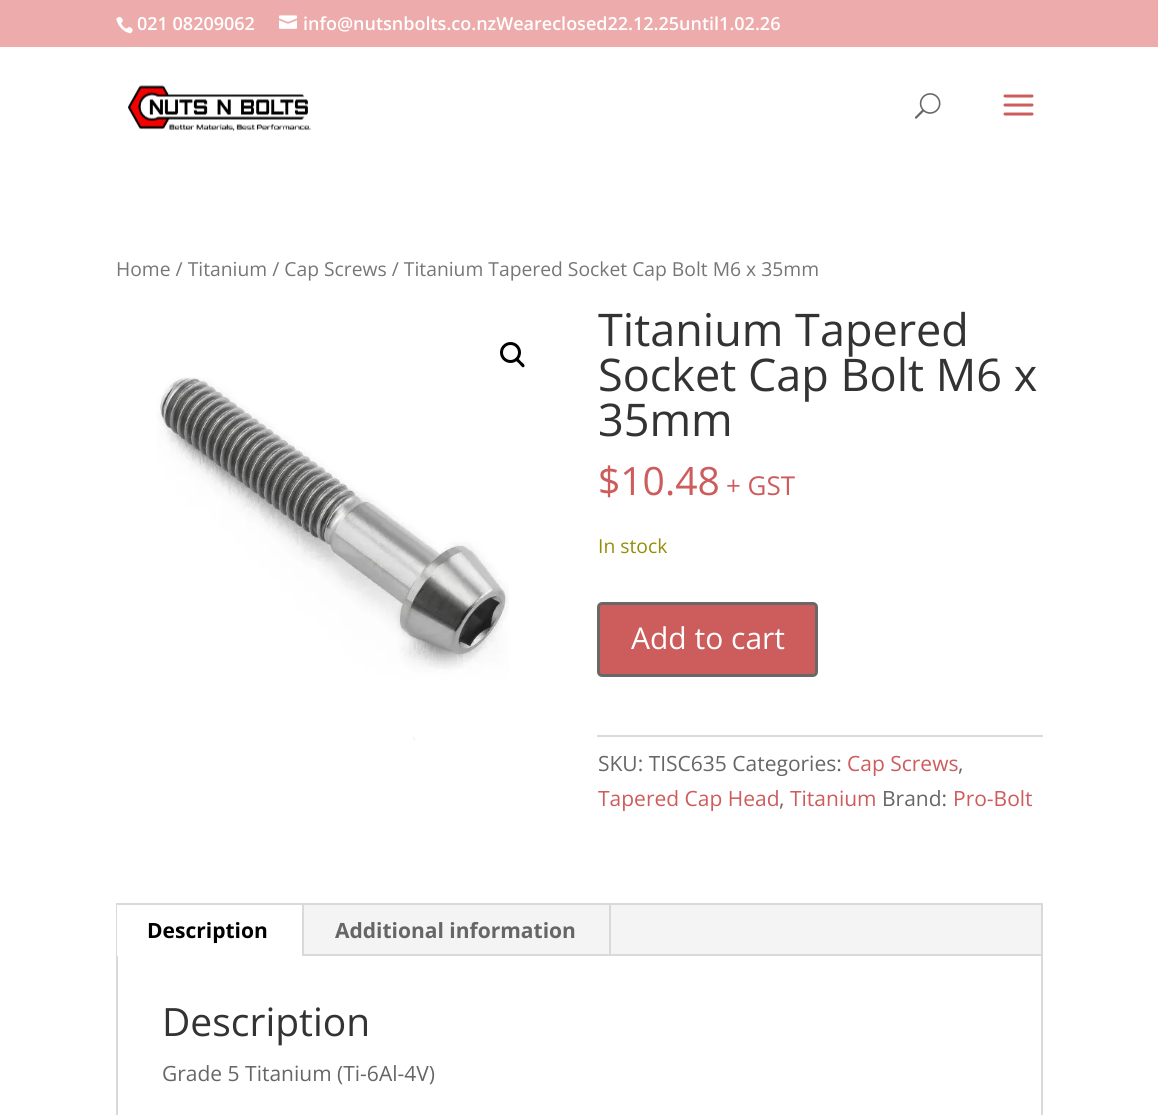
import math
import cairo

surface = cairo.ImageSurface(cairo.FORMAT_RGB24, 1158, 1115)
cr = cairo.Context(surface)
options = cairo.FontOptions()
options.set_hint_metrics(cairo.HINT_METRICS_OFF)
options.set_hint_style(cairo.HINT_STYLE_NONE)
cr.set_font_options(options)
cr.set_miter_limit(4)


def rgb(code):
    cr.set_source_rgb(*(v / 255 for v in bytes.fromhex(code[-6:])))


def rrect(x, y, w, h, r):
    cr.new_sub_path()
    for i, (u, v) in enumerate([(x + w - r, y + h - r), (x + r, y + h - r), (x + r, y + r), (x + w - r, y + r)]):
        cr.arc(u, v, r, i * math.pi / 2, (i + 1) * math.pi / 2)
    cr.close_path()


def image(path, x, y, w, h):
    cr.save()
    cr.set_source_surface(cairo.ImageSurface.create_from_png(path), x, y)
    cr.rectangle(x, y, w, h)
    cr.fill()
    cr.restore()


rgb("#ffffff")
cr.paint()
rgb("#edabab")
cr.rectangle(0, 0, 1158, 47)
cr.fill()
image("img/1.png", 116, 16, 17, 18)
image("img/2.png", 279, 15, 18, 14)
image("img/3.png", 128, 85, 183, 47)
image("img/4.png", 914, 93, 27, 26)
image("img/5.png", 1003, 94, 31, 22)
cr.arc(510.5, 352.5, 9, 0, 2 * math.pi)
rgb("#000000")
cr.set_line_width(3)
cr.stroke()
cr.new_path()
cr.move_to(515.5, 358.5)
cr.curve_to(517.5, 356.5, 520, 360.5, 521, 361.5)
cr.curve_to(522, 362.5, 526, 365, 524, 367)
cr.curve_to(522.5, 368.5, 520, 364.5, 519, 363.5)
cr.curve_to(518, 362.5, 514, 360, 515.5, 358.5)
cr.close_path()
cr.fill()
image("img/6.png", 157, 377, 352, 363)
rgb("#cd5c5c")
rrect(598.5, 603.5, 218, 72, 3.5)
cr.fill_preserve()
rgb("#686868")
cr.stroke()
rgb("#dadada")
cr.rectangle(597, 735, 446, 2)
cr.fill()
cr.rectangle(117, 904, 925, 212)
rgb("#d9d9d9")
cr.set_line_width(2)
cr.stroke()
for x, y, w, h, color in [
    (304, 905, 737, 49, "#f4f4f4"),
    (117, 905, 1, 51, "#ffffff"),
    (302, 905, 2, 51, "#d9d9d9"),
    (609, 905, 2, 51, "#d9d9d9"),
    (304, 954, 737, 2, "#d9d9d9"),
]:
    rgb(color)
    cr.rectangle(x, y, w, h)
    cr.fill()
cr.select_font_face("Open Sans SemiBold")
cr.set_font_size(18)
rgb("#ffffff")
cr.move_to(137, 30)
cr.show_text("021 08209062")
cr.move_to(303, 30)
cr.show_text("info@nutsnbolts.co.nzWeareclosed22.12.25until1.02.26")
cr.select_font_face("Open Sans")
cr.set_font_size(19.3)
rgb("#767676")
cr.move_to(116, 276)
cr.show_text("Home / Titanium / Cap Screws / Titanium Tapered Socket Cap Bolt M6 x 35mm")
cr.set_font_size(45)
rgb("#333333")
for x, y, s in [
    (598, 346, "Titanium Tapered"),
    (598, 391, "Socket Cap Bolt M6 x"),
    (598, 436, "35mm"),
]:
    cr.move_to(x, y)
    cr.show_text(s)
cr.set_font_size(39)
rgb("#cd5c5c")
cr.move_to(598, 495)
cr.show_text("$10.48")
cr.set_font_size(26)
cr.move_to(726, 495)
cr.show_text("+ GST")
cr.set_font_size(19.3)
rgb("#958e09")
cr.move_to(598, 553)
cr.show_text("In stock")
cr.set_font_size(30)
rgb("#ffffff")
cr.move_to(631, 649)
cr.show_text("Add to cart")
cr.set_font_size(21)
rgb("#666666")
cr.move_to(598, 771)
cr.show_text("SKU: TISC635 Categories:")
rgb("#cd5c5c")
cr.move_to(847, 771)
cr.show_text("Cap Screws")
rgb("#666666")
cr.move_to(958, 771)
cr.show_text(",")
rgb("#cd5c5c")
cr.move_to(598, 806)
cr.show_text("Tapered Cap Head")
rgb("#666666")
cr.move_to(779, 806)
cr.show_text(",")
rgb("#cd5c5c")
cr.move_to(790, 806)
cr.show_text("Titanium")
rgb("#666666")
cr.move_to(882, 806)
cr.show_text("Brand:")
rgb("#cd5c5c")
cr.move_to(953, 806)
cr.show_text("Pro-Bolt")
cr.select_font_face("Open Sans", cairo.FONT_SLANT_NORMAL, cairo.FONT_WEIGHT_BOLD)
rgb("#000000")
cr.move_to(147, 938)
cr.show_text("Description")
rgb("#666666")
cr.move_to(335, 938)
cr.show_text("Additional information")
cr.select_font_face("Open Sans")
cr.set_font_size(39)
rgb("#333333")
cr.move_to(162, 1036)
cr.show_text("Description")
cr.set_font_size(21)
rgb("#666666")
cr.move_to(162, 1081)
cr.show_text("Grade 5 Titanium (Ti-6Al-4V)")
surface.write_to_png("page.png")
